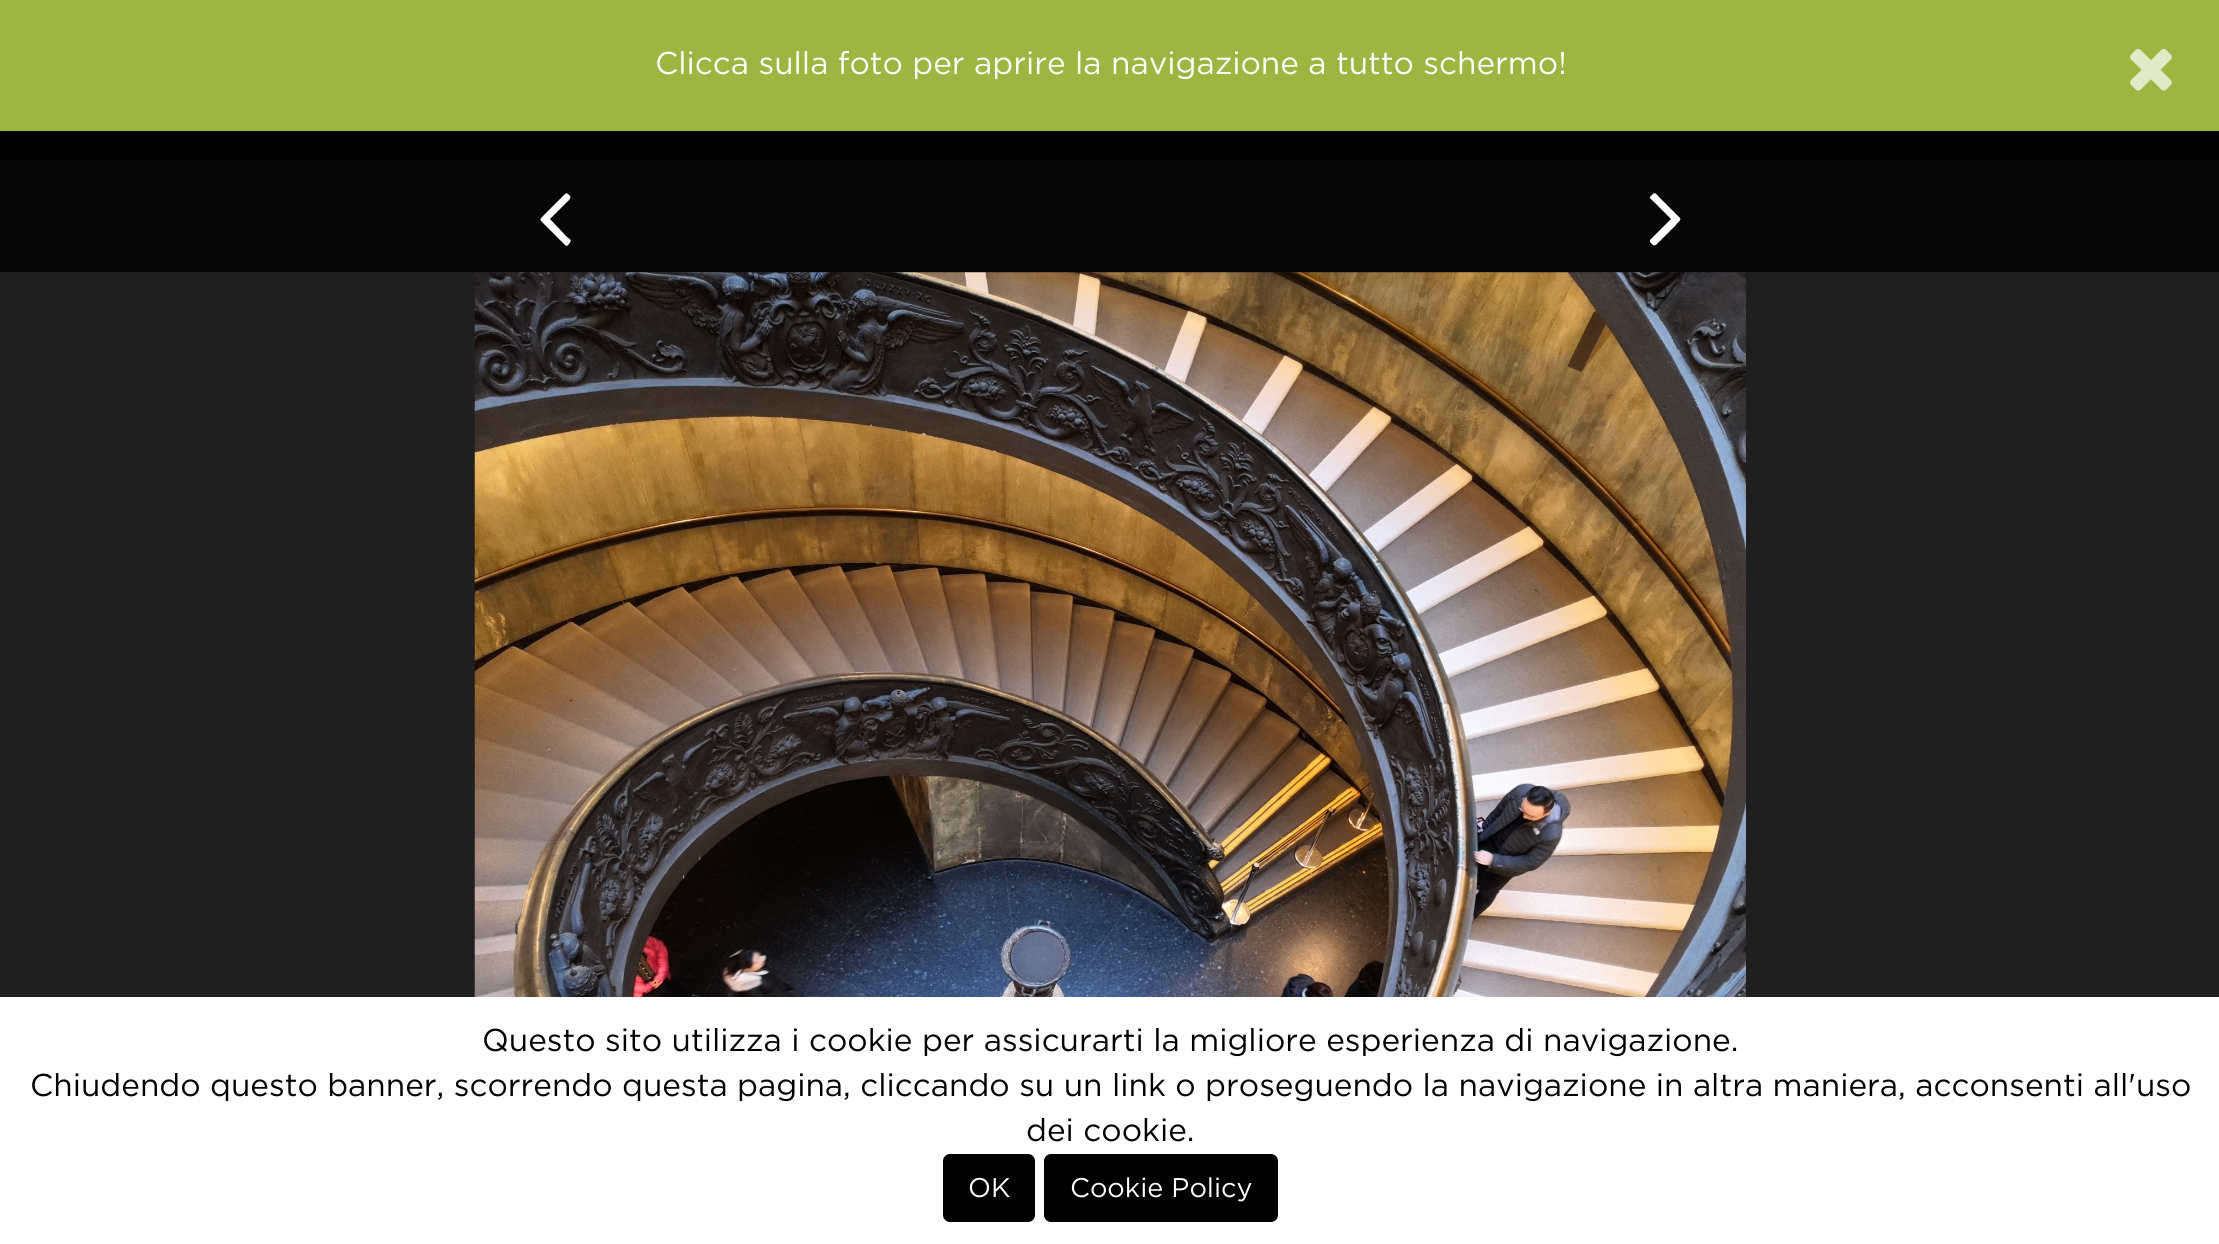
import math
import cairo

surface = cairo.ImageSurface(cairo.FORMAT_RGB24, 2219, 1244)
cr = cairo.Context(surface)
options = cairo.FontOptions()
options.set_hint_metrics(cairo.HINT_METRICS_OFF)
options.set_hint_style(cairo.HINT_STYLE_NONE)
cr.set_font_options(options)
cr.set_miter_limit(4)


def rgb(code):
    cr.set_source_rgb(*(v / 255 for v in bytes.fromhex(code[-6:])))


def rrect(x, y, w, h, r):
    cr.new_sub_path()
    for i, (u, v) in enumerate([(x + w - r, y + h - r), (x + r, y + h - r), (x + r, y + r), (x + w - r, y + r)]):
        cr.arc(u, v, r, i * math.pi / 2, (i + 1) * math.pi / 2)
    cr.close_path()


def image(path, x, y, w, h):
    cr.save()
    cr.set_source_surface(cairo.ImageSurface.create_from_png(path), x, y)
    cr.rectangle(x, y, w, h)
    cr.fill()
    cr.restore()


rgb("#1f1f1f")
cr.paint()
rgb("#9cb641")
cr.rectangle(0, 0, 2219, 131)
cr.fill()
image("img/1.png", 2130, 48, 42, 43)
rgb("#060606")
cr.rectangle(0, 160, 2219, 112)
cr.fill()
rgb("#ffffff")
cr.new_path()
cr.move_to(570, 196)
cr.curve_to(572, 198, 567, 202, 567, 202)
cr.line_to(550, 219)
cr.line_to(567, 237)
cr.curve_to(571, 240, 572, 240, 569, 244)
cr.curve_to(568, 245, 567, 247, 565, 245)
cr.line_to(545, 225)
cr.curve_to(539, 219, 539, 220, 545, 214)
cr.line_to(565, 194)
cr.curve_to(567, 192, 569, 195, 570, 196)
cr.close_path()
cr.fill()
cr.new_path()
cr.move_to(1680, 218)
cr.curve_to(1682, 220, 1676, 224, 1676, 225)
cr.line_to(1660, 241)
cr.curve_to(1659, 241, 1656, 247, 1653, 245)
cr.curve_to(1652, 244, 1649, 242, 1650, 240)
cr.line_to(1671, 219)
cr.line_to(1654, 202)
cr.curve_to(1650, 198, 1648, 198, 1652, 195)
cr.curve_to(1655, 191, 1656, 194, 1660, 198)
cr.close_path()
cr.fill()
image("img/2.png", 474, 272, 1272, 725)
rgb("#000000")
cr.rectangle(0, 131, 2219, 29)
cr.fill()
rgb("#ffffff")
cr.rectangle(0, 997, 2219, 247)
cr.fill()
rgb("#000000")
rrect(943, 1154, 92, 68, 7)
cr.fill()
rrect(1044, 1154, 234, 68, 7)
cr.fill()
cr.select_font_face("Gotham")
cr.set_font_size(31.5)
rgb("#ffffff")
cr.move_to(655, 74)
cr.show_text("Clicca sulla foto per aprire la navigazione a tutto schermo!")
rgb("#000000")
for x, y, s in [
    (482, 1051, "Questo sito utilizza i cookie per assicurarti la migliore esperienza di navigazione."),
    (30, 1096, "Chiudendo questo banner, scorrendo questa pagina, cliccando su un link o proseguendo la navigazione in altra maniera, acconsenti all'uso"),
    (1026, 1141, "dei cookie."),
]:
    cr.move_to(x, y)
    cr.show_text(s)
cr.set_font_size(27)
rgb("#ffffff")
cr.move_to(968, 1197)
cr.show_text("OK")
cr.move_to(1070, 1197)
cr.show_text("Cookie Policy")
surface.write_to_png("page.png")
